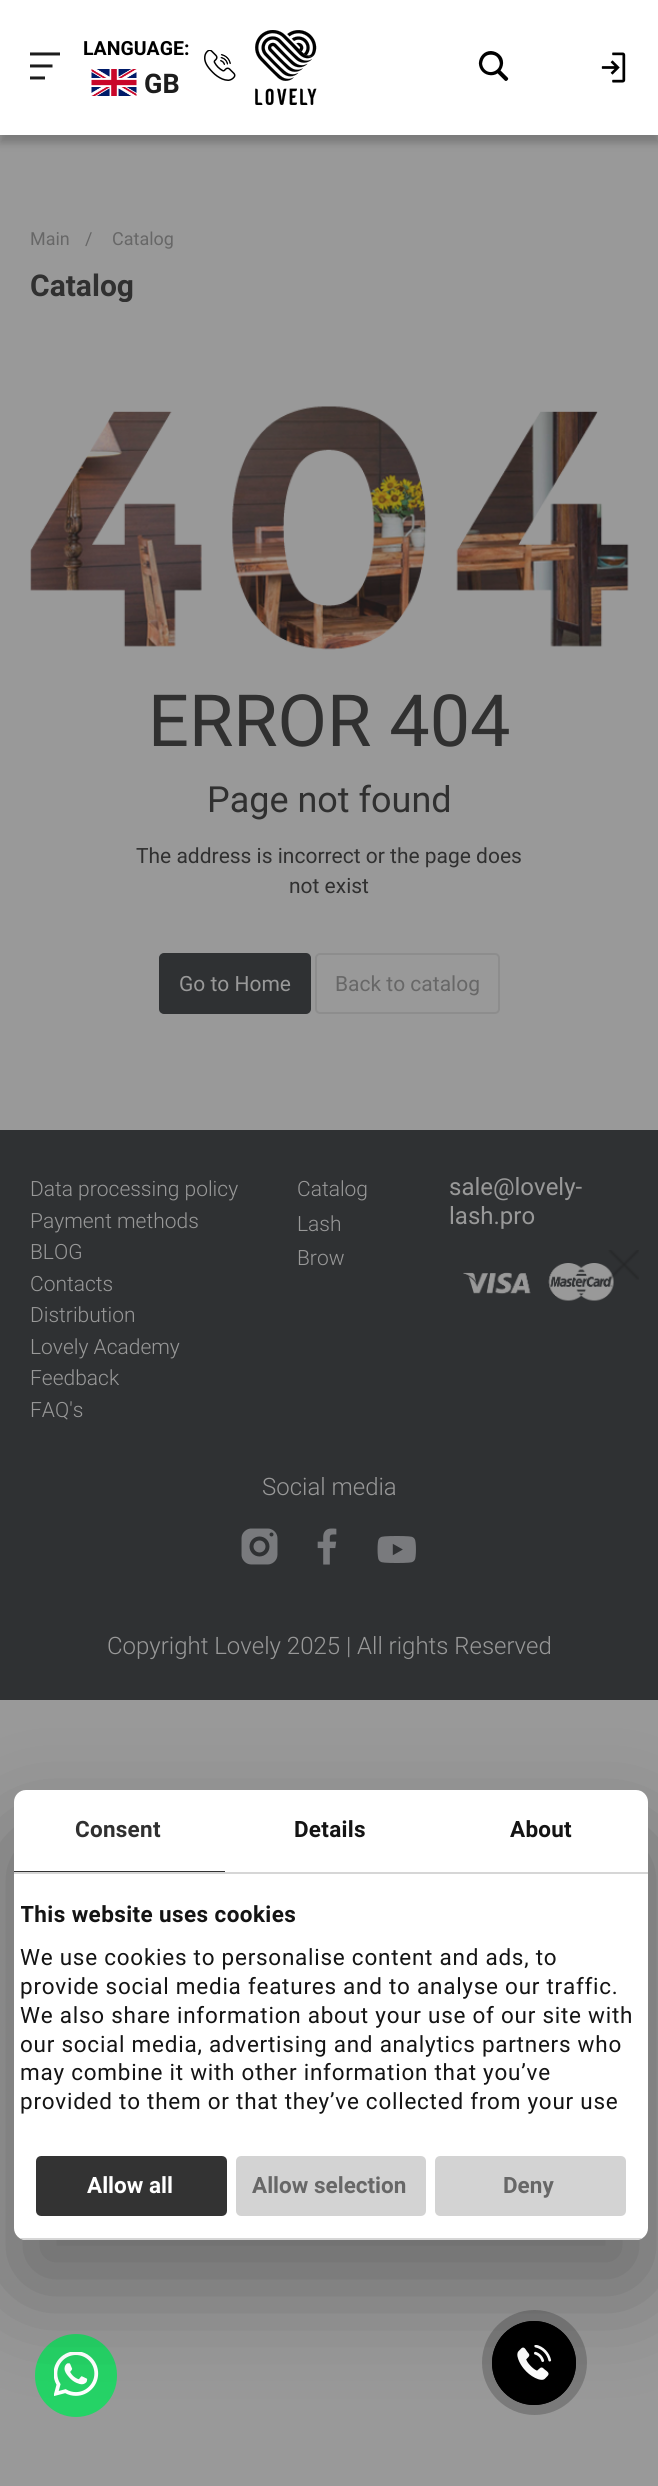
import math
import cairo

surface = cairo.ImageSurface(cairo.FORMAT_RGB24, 658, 2486)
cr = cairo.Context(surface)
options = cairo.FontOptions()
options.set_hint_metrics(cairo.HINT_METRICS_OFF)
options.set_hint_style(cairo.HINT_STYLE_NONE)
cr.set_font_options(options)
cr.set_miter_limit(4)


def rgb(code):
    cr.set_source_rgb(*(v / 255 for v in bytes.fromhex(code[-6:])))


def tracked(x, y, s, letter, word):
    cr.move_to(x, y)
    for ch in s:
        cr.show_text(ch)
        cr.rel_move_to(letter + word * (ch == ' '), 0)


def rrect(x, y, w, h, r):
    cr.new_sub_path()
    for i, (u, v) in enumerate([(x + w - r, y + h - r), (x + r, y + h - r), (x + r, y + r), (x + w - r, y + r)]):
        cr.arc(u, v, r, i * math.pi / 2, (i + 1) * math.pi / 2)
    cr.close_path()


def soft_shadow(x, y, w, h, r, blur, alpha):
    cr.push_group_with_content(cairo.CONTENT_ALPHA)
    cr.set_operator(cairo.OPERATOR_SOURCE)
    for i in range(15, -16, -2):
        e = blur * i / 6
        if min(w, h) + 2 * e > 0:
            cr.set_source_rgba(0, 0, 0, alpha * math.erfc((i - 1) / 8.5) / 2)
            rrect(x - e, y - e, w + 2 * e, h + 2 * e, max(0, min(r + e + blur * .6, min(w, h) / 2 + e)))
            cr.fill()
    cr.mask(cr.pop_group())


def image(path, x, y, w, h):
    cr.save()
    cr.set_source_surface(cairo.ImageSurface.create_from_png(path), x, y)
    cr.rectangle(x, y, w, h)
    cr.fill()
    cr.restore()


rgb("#999999")
cr.paint()
rgb("#000000")
soft_shadow(0, 8, 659, 135, 0, 4, 0.2)
rgb("#ffffff")
cr.rectangle(0, 0, 658, 135)
cr.fill()
image("img/1.png", 30, 52, 30, 28)
image("img/2.png", 91, 69, 46, 27)
image("img/3.png", 204, 50, 32, 31)
image("img/4.png", 255, 30, 62, 75)
image("img/5.png", 478, 51, 31, 30)
image("img/6.png", 601, 52, 25, 31)
image("img/7.png", 30, 406, 599, 244)
rgb("#2f3133")
rrect(160, 954, 150, 59, 4)
cr.fill_preserve()
cr.stroke()
rrect(316, 954, 183, 59, 4)
rgb("#8d8d8d")
cr.stroke()
rgb("#2f3133")
cr.rectangle(0, 1130, 658, 570)
cr.fill()
image("img/8.png", 463, 1263, 151, 38)
image("img/9.png", 241, 1528, 37, 37)
image("img/10.png", 317, 1528, 20, 37)
image("img/11.png", 377, 1536, 39, 27)
image("img/12.png", 608, 1250, 31, 30)
rgb("#25d366")
rrect(35, 2334, 82, 83, 41)
cr.fill()
image("img/13.png", 54, 2352, 45, 44)
rgb("#7a7a7a")
cr.arc(534.5, 2362.5, 52.5, 0, 2 * math.pi)
cr.fill()
cr.arc(534, 2363, 41.5, 0, 2 * math.pi)
rgb("#000000")
cr.set_line_width(1)
cr.stroke()
cr.arc(534, 2363, 42, 0, 2 * math.pi)
cr.fill()
image("img/14.png", 517, 2345, 35, 35)
rgb("#000000")
soft_shadow(14, 1838, 634, 450, 12, 51, 0.3)
rgb("#ffffff")
rrect(14, 1790, 634, 450, 12)
cr.fill()
rgb("#d6d6d6")
cr.rectangle(14, 1872, 634, 2)
cr.fill()
rgb("#333333")
cr.rectangle(14, 1871, 211, 1)
cr.fill()
cr.save()
rrect(14, 1790, 634, 450, 12)
cr.clip()
rgb("#d6d6d6")
cr.rectangle(14, 2238, 634, 2)
cr.fill()
cr.restore()
rrect(37.5, 2157.5, 188, 57, 3.5)
cr.fill_preserve()
cr.set_line_width(3)
cr.stroke()
rgb("#d3d3d3")
rrect(237.5, 2157.5, 187, 57, 3.5)
cr.fill_preserve()
cr.stroke()
rrect(436.5, 2157.5, 188, 57, 3.5)
cr.fill_preserve()
cr.stroke()
cr.select_font_face("Roboto", cairo.FONT_SLANT_NORMAL, cairo.FONT_WEIGHT_BOLD)
cr.set_font_size(19.5)
rgb("#000000")
cr.move_to(83, 55)
cr.show_text("LANGUAGE:")
cr.set_font_size(27)
rgb("#1d1d1d")
cr.move_to(144, 93)
cr.show_text("GB")
cr.select_font_face("Roboto")
cr.set_font_size(18)
rgb("#676767")
for x, y, s in [
    (30, 245, "Main"),
    (85, 245, "/"),
    (112, 245, "Catalog"),
]:
    cr.move_to(x, y)
    cr.show_text(s)
cr.save()
cr.rectangle(0, 269, 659, 33)
cr.clip()
cr.select_font_face("Roboto", cairo.FONT_SLANT_NORMAL, cairo.FONT_WEIGHT_BOLD)
cr.set_font_size(30)
rgb("#303030")
cr.move_to(30, 296)
cr.show_text("Catalog")
cr.restore()
cr.set_font_size(72)
rgb("#303030")
cr.move_to(148, 746)
cr.show_text("ERROR 404")
cr.set_font_size(36)
cr.move_to(207, 812)
cr.show_text("Page not found")
cr.set_font_size(21)
cr.move_to(136, 863)
cr.show_text("The address is incorrect or the page does")
cr.move_to(289, 893)
cr.show_text("not exist")
rgb("#999999")
cr.move_to(179, 991)
cr.show_text("Go to Home")
rgb("#676767")
cr.move_to(335, 991)
cr.show_text("Back to catalog")
cr.select_font_face("Roboto Light")
rgb("#999999")
for x, y, s in [
    (30, 1196, "Data processing policy"),
    (30, 1228, "Payment methods"),
    (30, 1259, "BLOG"),
    (30, 1291, "Contacts"),
    (30, 1322, "Distribution"),
    (30, 1354, "Lovely Academy"),
    (30, 1385, "Feedback"),
    (30, 1417, "FAQ's"),
    (297, 1196, "Catalog"),
    (297, 1231, "Lash"),
    (297, 1265, "Brow"),
]:
    cr.move_to(x, y)
    cr.show_text(s)
cr.select_font_face("Roboto")
cr.set_font_size(24)
cr.move_to(449, 1195)
cr.show_text("sale@lovely-")
cr.move_to(449, 1224)
cr.show_text("lash.pro")
cr.select_font_face("Roboto Light")
cr.move_to(262, 1495)
cr.show_text("Social media")
cr.move_to(107, 1654)
cr.show_text("Copyright Lovely 2025 | All rights Reserved")
cr.select_font_face("Roboto", cairo.FONT_SLANT_NORMAL, cairo.FONT_WEIGHT_BOLD)
cr.set_font_size(22.5)
rgb("#303030")
tracked(75, 1837, "Consent", 0.25, 0)
rgb("#141414")
tracked(294, 1837, "Details", 0.25, 0)
tracked(510, 1837, "About", 0.25, 0)
cr.save()
cr.rectangle(21, 1883, 618, 250)
cr.clip()
tracked(20, 1922, "This website uses cookies", 0.4, 0)
cr.restore()
cr.select_font_face("Roboto")
for x, y, s in [
    (20, 1965, "We use cookies to personalise content and ads, to"),
    (20, 1994, "provide social media features and to analyse our traffic."),
    (20, 2023, "We also share information about your use of our site with"),
    (20, 2052, "our social media, advertising and analytics partners who"),
    (20, 2080, "may combine it with other information that you’ve"),
    (20, 2109, "provided to them or that they’ve collected from your use"),
]:
    tracked(x, y, s, 0.75, 0)
cr.select_font_face("Roboto", cairo.FONT_SLANT_NORMAL, cairo.FONT_WEIGHT_BOLD)
rgb("#ffffff")
cr.move_to(87, 2193)
cr.show_text("Allow all")
rgb("#676767")
cr.move_to(252, 2193)
cr.show_text("Allow selection")
cr.move_to(503, 2193)
cr.show_text("Deny")
surface.write_to_png("page.png")
